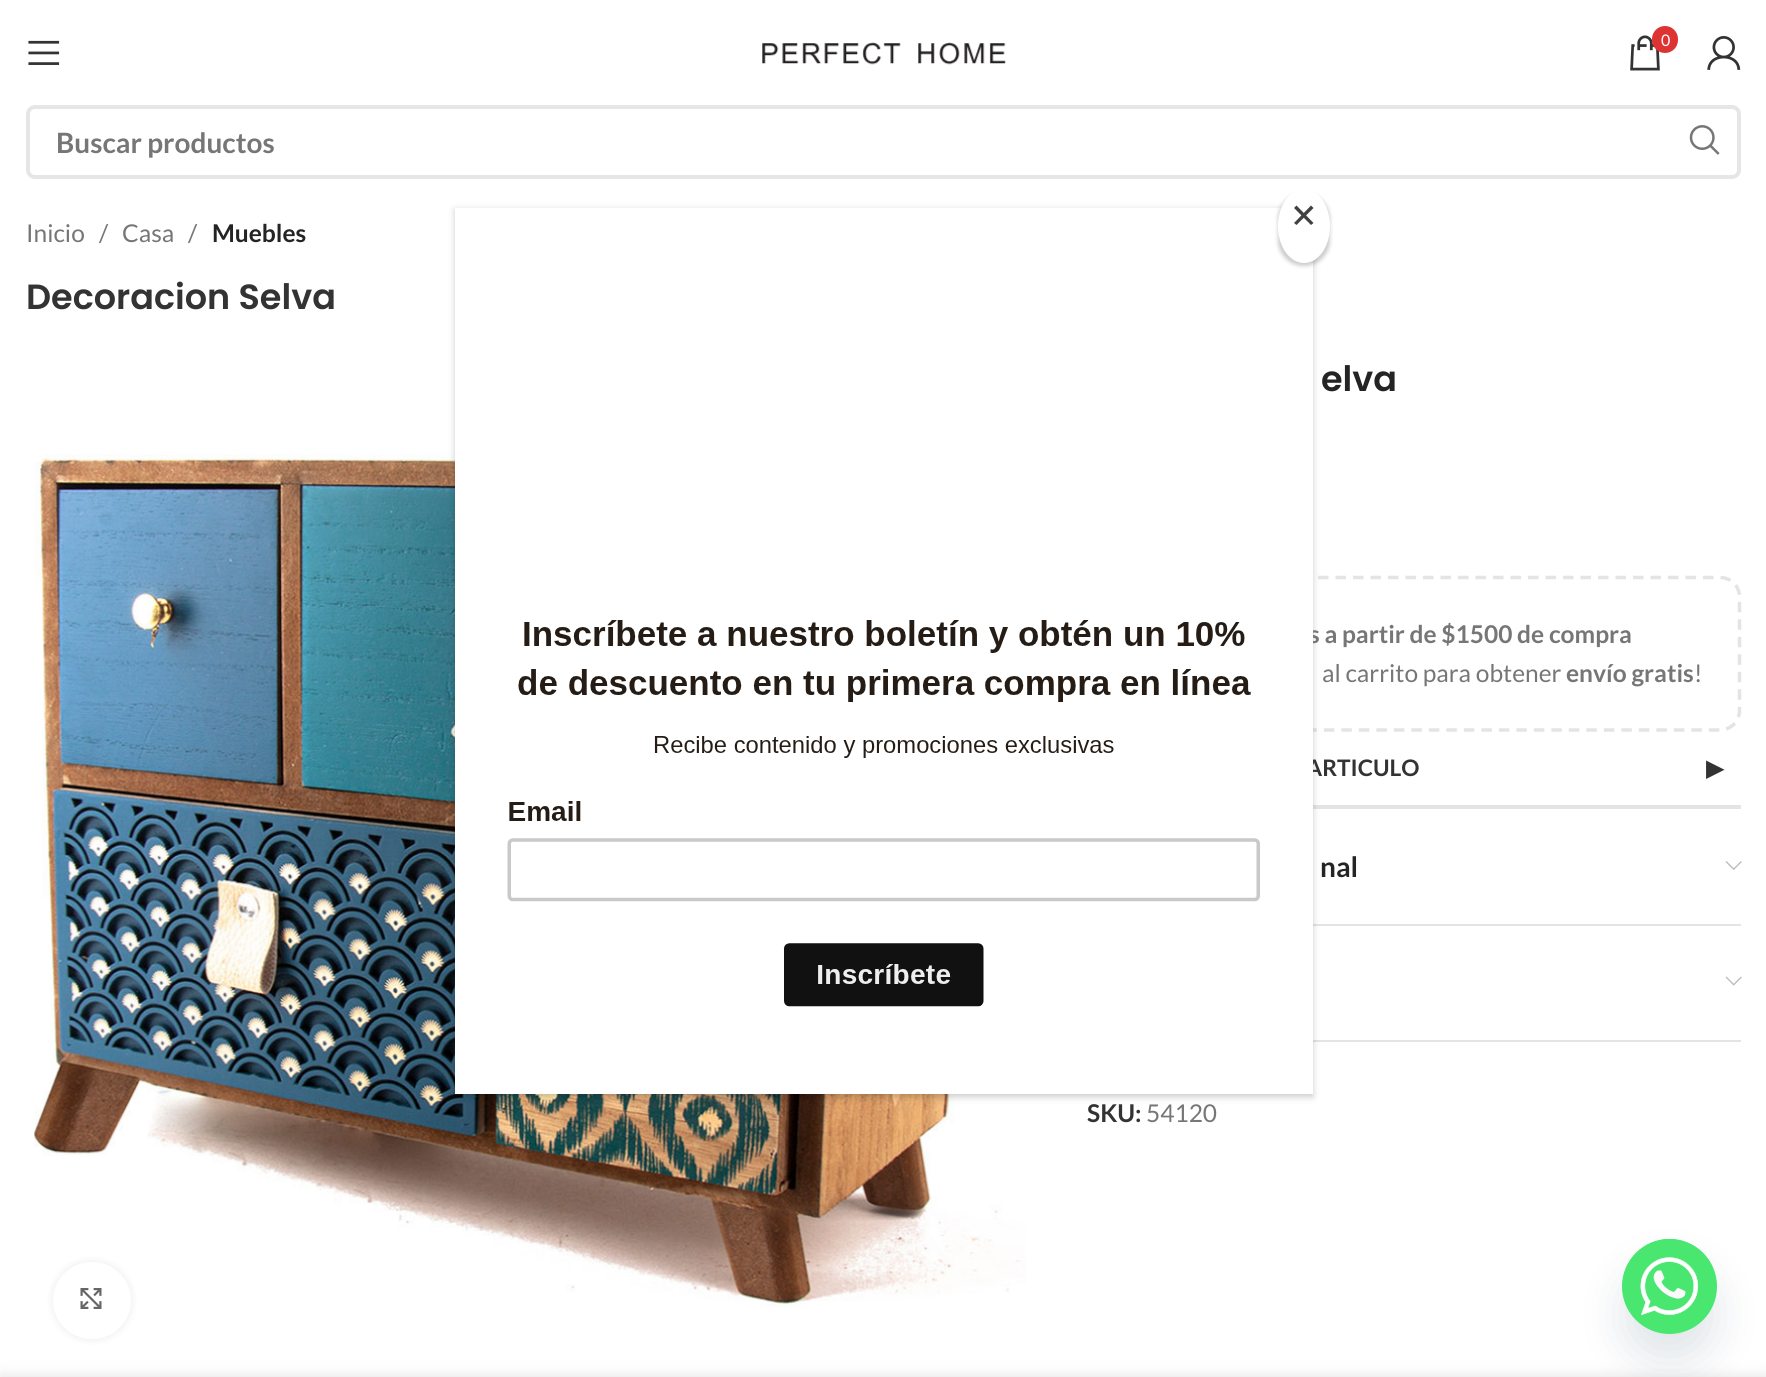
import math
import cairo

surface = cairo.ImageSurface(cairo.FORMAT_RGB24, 1766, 1377)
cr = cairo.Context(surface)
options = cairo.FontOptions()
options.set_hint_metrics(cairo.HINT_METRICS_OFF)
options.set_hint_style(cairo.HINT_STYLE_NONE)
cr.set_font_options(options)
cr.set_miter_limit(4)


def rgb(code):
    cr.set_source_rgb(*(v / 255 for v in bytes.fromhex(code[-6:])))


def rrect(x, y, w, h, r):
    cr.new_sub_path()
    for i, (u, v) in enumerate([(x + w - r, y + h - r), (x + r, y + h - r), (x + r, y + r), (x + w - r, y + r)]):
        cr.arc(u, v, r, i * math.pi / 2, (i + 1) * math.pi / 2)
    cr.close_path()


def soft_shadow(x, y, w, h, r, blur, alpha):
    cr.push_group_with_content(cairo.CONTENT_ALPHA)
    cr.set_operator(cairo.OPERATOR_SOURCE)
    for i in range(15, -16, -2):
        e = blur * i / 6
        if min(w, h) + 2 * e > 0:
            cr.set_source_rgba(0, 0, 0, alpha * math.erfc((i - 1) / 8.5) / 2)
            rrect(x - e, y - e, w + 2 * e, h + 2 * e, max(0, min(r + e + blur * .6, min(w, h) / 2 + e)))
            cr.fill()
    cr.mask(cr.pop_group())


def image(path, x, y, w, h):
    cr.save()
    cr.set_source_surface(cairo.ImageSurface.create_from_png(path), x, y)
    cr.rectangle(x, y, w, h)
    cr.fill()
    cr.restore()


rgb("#ffffff")
cr.paint()
image("img/1.png", 28, 40, 32, 25)
image("img/2.png", 762, 42, 244, 23)
image("img/3.png", 1630, 35, 30, 36)
rgb("#dd3333")
rrect(1652, 26, 26, 27, 13)
cr.fill()
image("img/4.png", 1707, 36, 34, 34)
rrect(28, 107, 1711, 70, 7)
rgb("#e6e6e6")
cr.set_line_width(4)
cr.stroke()
image("img/5.png", 1689, 125, 31, 30)
image("img/6.png", 34, 454, 992, 854)
rgb("#000000")
soft_shadow(53, 1262, 78, 77, 38.5, 4.5, 0.08)
rgb("#ffffff")
rrect(53, 1262, 78, 77, 38.5)
cr.fill()
image("img/7.png", 80, 1288, 22, 21)
cr.new_path()
cr.move_to(1108, 577.5)
cr.line_to(1720, 577.5)
cr.curve_to(1731, 577.5, 1739.5, 586, 1739.5, 597)
cr.line_to(1739.5, 710.5)
cr.curve_to(1739.5, 721, 1731, 730, 1720, 730)
cr.line_to(1108, 730)
cr.curve_to(1097, 730, 1088.5, 721, 1088.5, 710.5)
cr.line_to(1088.5, 597)
cr.curve_to(1088.5, 586, 1097, 577.5, 1108, 577.5)
cr.close_path()
rgb("#e4e4e4")
cr.set_line_width(3.5)
cr.set_dash([10.5, 7])
cr.stroke()
cr.rectangle(1313, 805, 428, 4)
cr.fill()
cr.rectangle(1313, 924, 428, 2)
cr.fill()
image("img/8.png", 1725, 861, 17, 9)
cr.rectangle(1313, 1040, 428, 2)
cr.fill()
image("img/9.png", 1725, 976, 17, 10)
rgb("#000000")
soft_shadow(455, 210, 858, 887, 0, 3.5, 0.2)
rgb("#49687e")
soft_shadow(1622, 1267, 95, 95, 47.5, 21, 0.16)
rgb("#49e670")
cr.arc(1669.5, 1286.5, 47.5, 0, 2 * math.pi)
cr.fill()
image("img/11.png", 1622, 1239, 95, 77)
rgb("#000000")
soft_shadow(0, 1377, 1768, 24, 0, 8, 0.12)
cr.select_font_face("Lato")
cr.set_font_size(16)
rgb("#ffffff")
cr.move_to(1661, 46)
cr.show_text("0")
cr.select_font_face("Lato", cairo.FONT_SLANT_NORMAL, cairo.FONT_WEIGHT_BOLD)
cr.set_font_size(28)
rgb("#767676")
cr.move_to(56, 153)
cr.show_text("Buscar productos")
cr.select_font_face("Lato")
cr.set_font_size(24.5)
for x, y, s in [
    (26, 242, "Inicio"),
    (99, 242, "/"),
    (122, 242, "Casa"),
    (188, 242, "/"),
]:
    cr.move_to(x, y)
    cr.show_text(s)
cr.select_font_face("Lato", cairo.FONT_SLANT_NORMAL, cairo.FONT_WEIGHT_BOLD)
rgb("#242424")
cr.move_to(212, 242)
cr.show_text("Muebles")
cr.select_font_face("Poppins SemiBold")
cr.set_font_size(35)
rgb("#333333")
cr.move_to(26, 309)
cr.show_text("Decoracion Selva")
rgb("#242424")
cr.move_to(1321, 391)
cr.show_text("elva")
cr.select_font_face("Lato", cairo.FONT_SLANT_NORMAL, cairo.FONT_WEIGHT_BOLD)
cr.set_font_size(24.5)
rgb("#767676")
cr.move_to(1309, 643)
cr.show_text("s a partir de $1500 de compra")
cr.select_font_face("Lato")
cr.move_to(1322, 682)
cr.show_text("al carrito para obtener")
cr.select_font_face("Lato", cairo.FONT_SLANT_NORMAL, cairo.FONT_WEIGHT_BOLD)
cr.move_to(1566, 682)
cr.show_text("envío gratis")
cr.select_font_face("Lato")
cr.move_to(1694, 682)
cr.show_text("!")
cr.select_font_face("Lato", cairo.FONT_SLANT_NORMAL, cairo.FONT_WEIGHT_BOLD)
cr.set_font_size(22.75)
rgb("#333333")
cr.move_to(1306, 776)
cr.show_text("ARTICULO")
cr.select_font_face("DejaVu Sans", cairo.FONT_SLANT_NORMAL, cairo.FONT_WEIGHT_BOLD)
cr.move_to(1706, 776)
cr.show_text("▶")
cr.select_font_face("Lato", cairo.FONT_SLANT_NORMAL, cairo.FONT_WEIGHT_BOLD)
cr.set_font_size(28)
rgb("#242424")
cr.move_to(1320, 877)
cr.show_text("nal")
cr.set_font_size(24.5)
rgb("#333333")
cr.move_to(1087, 1122)
cr.show_text("SKU:")
cr.select_font_face("Lato")
rgb("#767676")
cr.move_to(1146, 1122)
cr.show_text("54120")
image("img/10.png", 455, 208, 858, 886)
rgb("#000000")
soft_shadow(1278, 193, 52, 73, 26, 2, 0.2)
rgb("#ffffff")
cr.new_path()
cr.move_to(1304, 189)
cr.curve_to(1318.5, 189, 1330, 205.5, 1330, 226)
cr.curve_to(1330, 246.5, 1318.5, 263, 1304, 263)
cr.curve_to(1289.5, 263, 1278, 246.5, 1278, 226)
cr.curve_to(1278, 205.5, 1289.5, 189, 1304, 189)
cr.close_path()
cr.fill()
rgb("#414141")
cr.new_path()
cr.move_to(1311, 205.5)
cr.line_to(1313.5, 208)
cr.line_to(1296.5, 225)
cr.line_to(1294, 223)
cr.close_path()
cr.fill()
cr.new_path()
cr.move_to(1294, 208)
cr.line_to(1296.5, 205.5)
cr.line_to(1313.5, 223)
cr.line_to(1311, 225)
cr.close_path()
cr.fill()
surface.write_to_png("page.png")
